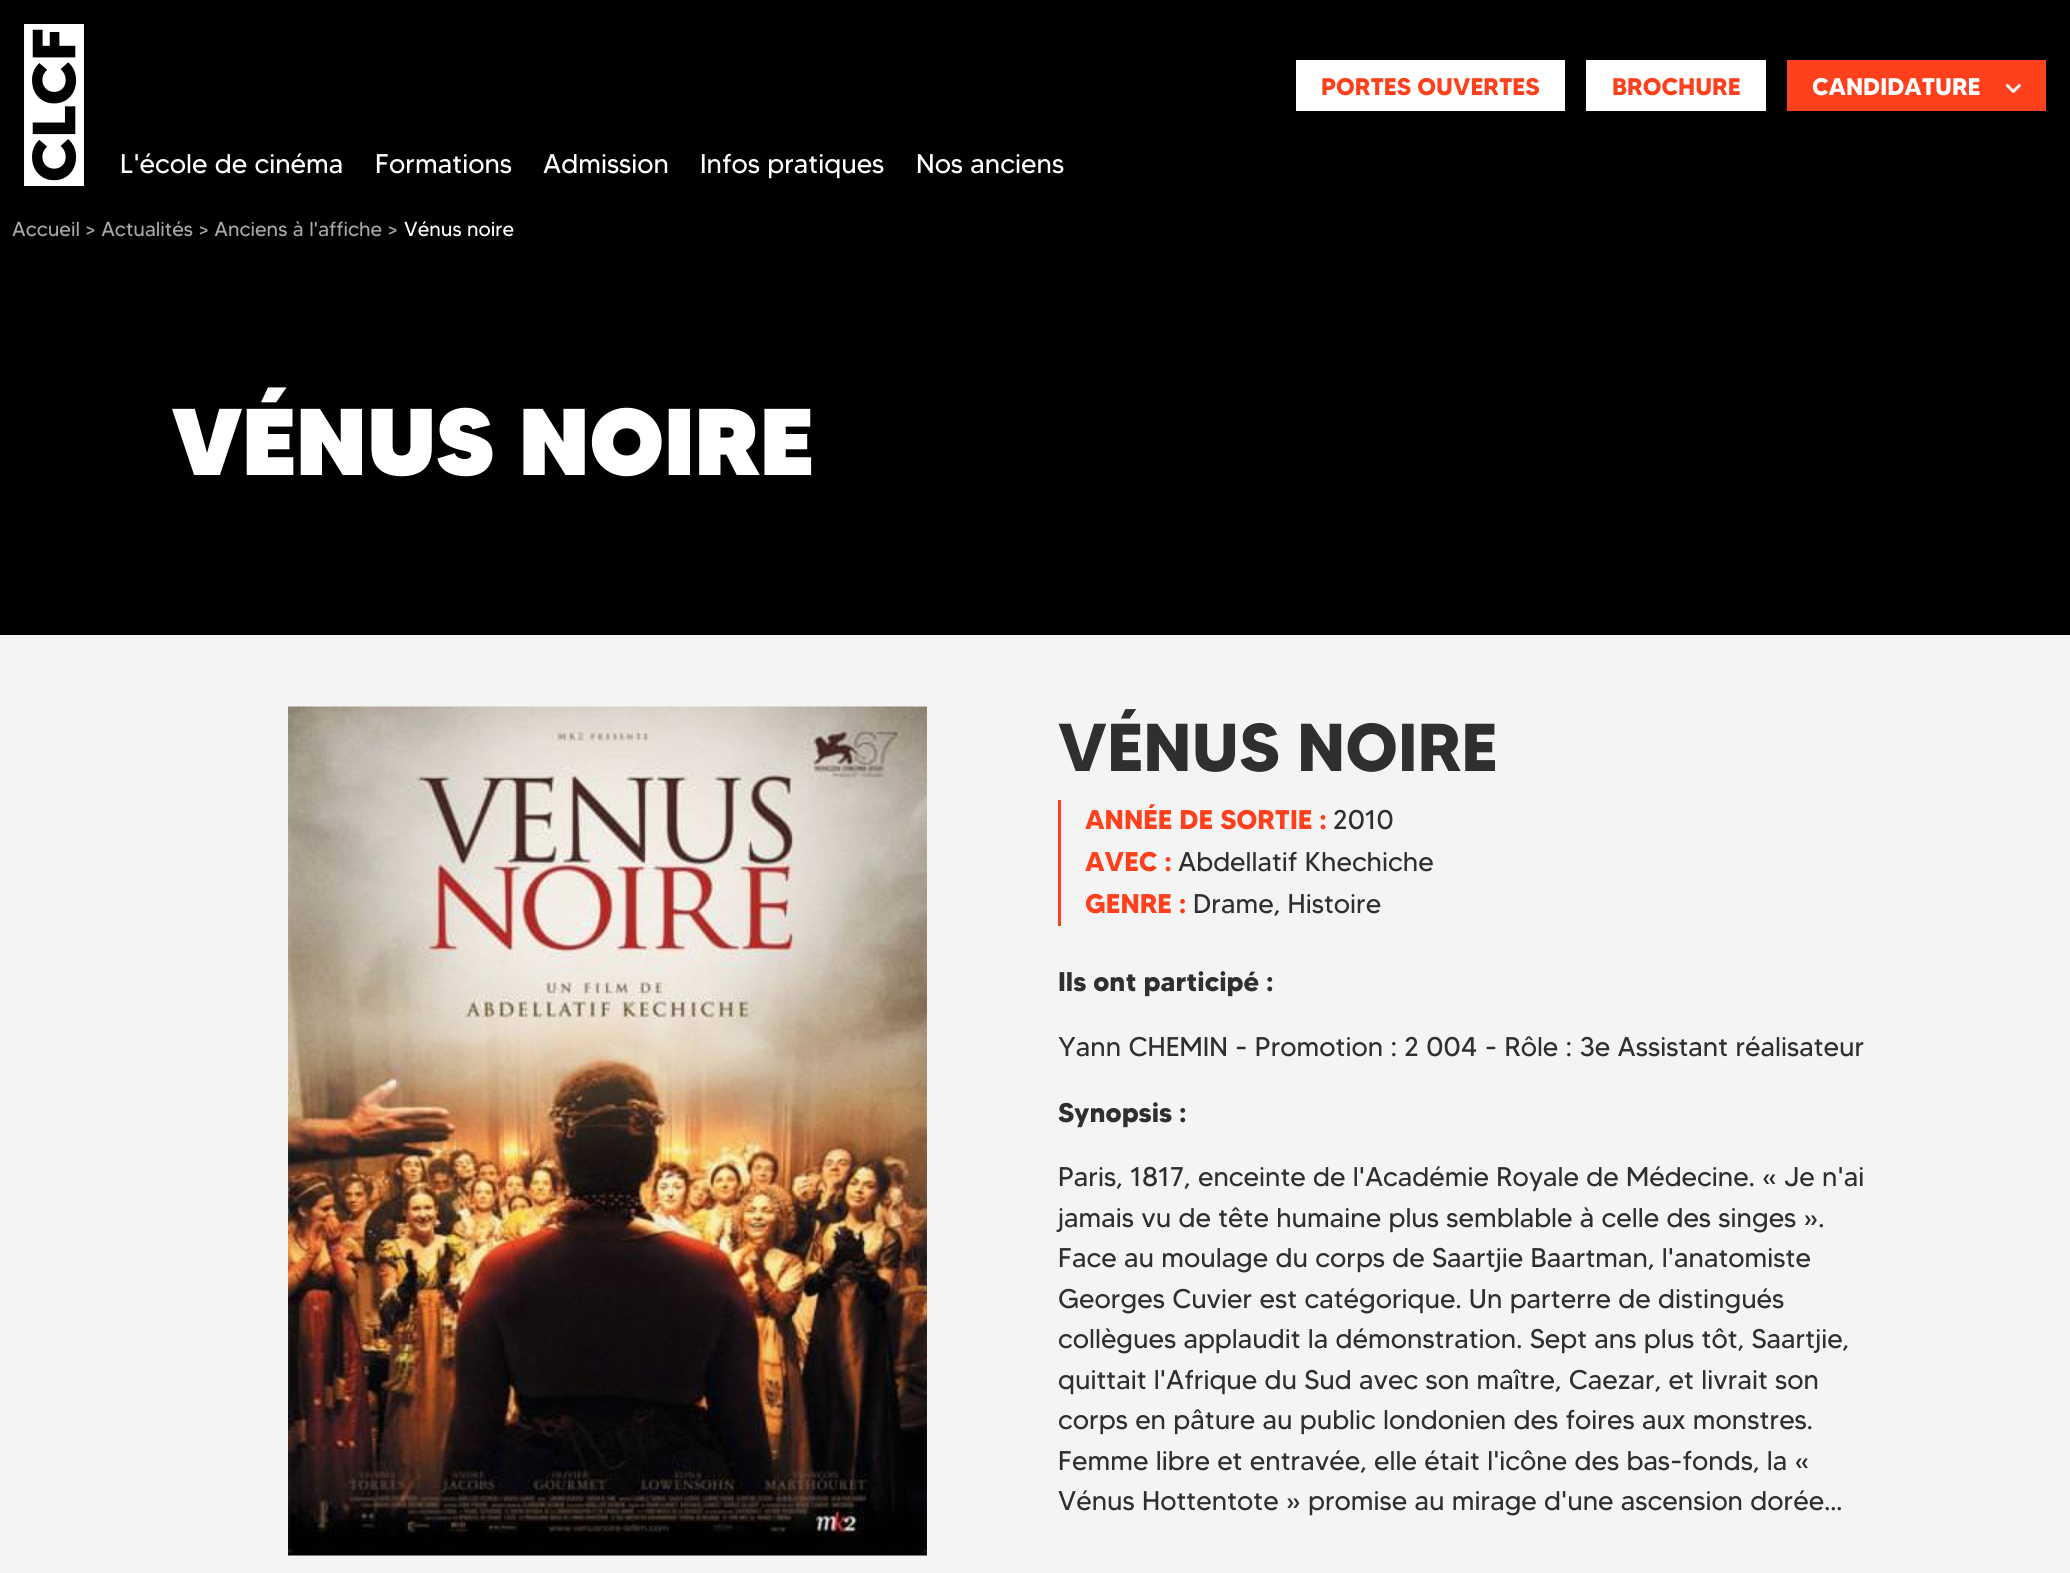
import math
import cairo

surface = cairo.ImageSurface(cairo.FORMAT_RGB24, 2070, 1573)
cr = cairo.Context(surface)
options = cairo.FontOptions()
options.set_hint_metrics(cairo.HINT_METRICS_OFF)
options.set_hint_style(cairo.HINT_STYLE_NONE)
cr.set_font_options(options)
cr.set_miter_limit(4)


def rgb(code):
    cr.set_source_rgb(*(v / 255 for v in bytes.fromhex(code[-6:])))


def image(path, x, y, w, h):
    cr.save()
    cr.set_source_surface(cairo.ImageSurface.create_from_png(path), x, y)
    cr.rectangle(x, y, w, h)
    cr.fill()
    cr.restore()


rgb("#f4f4f4")
cr.paint()
rgb("#000000")
cr.rectangle(0, 0, 2070, 635)
cr.fill()
image("img/1.png", 24, 24, 60, 162)
for x, y, w, h, color in [
    (1296, 60, 269, 51, "#ffffff"),
    (1586, 60, 180, 51, "#ffffff"),
    (1787, 60, 259, 51, "#ff401c"),
]:
    rgb(color)
    cr.rectangle(x, y, w, h)
    cr.fill()
image("img/2.png", 2005, 83, 16, 11)
image("img/3.png", 288, 706, 639, 850)
cr.rectangle(1058, 800, 3, 126)
cr.fill()
cr.select_font_face("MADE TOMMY", cairo.FONT_SLANT_NORMAL, cairo.FONT_WEIGHT_BOLD)
cr.set_font_size(24)
cr.move_to(1321, 95)
cr.show_text("PORTES OUVERTES")
cr.move_to(1612, 95)
cr.show_text("BROCHURE")
rgb("#ffffff")
cr.move_to(1812, 95)
cr.show_text("CANDIDATURE")
cr.select_font_face("MADE TOMMY")
cr.set_font_size(27)
for x, y, s in [
    (120, 173, "L'école de cinéma"),
    (375, 173, "Formations"),
    (543, 173, "Admission"),
    (700, 173, "Infos pratiques"),
    (916, 173, "Nos anciens"),
]:
    cr.move_to(x, y)
    cr.show_text(s)
cr.set_font_size(20.25)
rgb("#a7a7a7")
cr.move_to(12, 236)
cr.show_text("Accueil > Actualités > Anciens à l'affiche >")
rgb("#ffffff")
cr.move_to(404, 236)
cr.show_text("Vénus noire")
cr.select_font_face("MADE TOMMY Black")
cr.set_font_size(94.5)
cr.move_to(172, 475)
cr.show_text("VÉNUS NOIRE")
cr.select_font_face("MADE TOMMY", cairo.FONT_SLANT_NORMAL, cairo.FONT_WEIGHT_BOLD)
cr.set_font_size(67.5)
rgb("#2f2f2f")
cr.move_to(1058, 771)
cr.show_text("VÉNUS NOIRE")
cr.set_font_size(27)
rgb("#ff401c")
cr.move_to(1085, 829)
cr.show_text("ANNÉE DE SORTIE :")
cr.select_font_face("MADE TOMMY")
rgb("#2f2f2f")
cr.move_to(1333, 829)
cr.show_text("2010")
cr.select_font_face("MADE TOMMY", cairo.FONT_SLANT_NORMAL, cairo.FONT_WEIGHT_BOLD)
rgb("#ff401c")
cr.move_to(1085, 871)
cr.show_text("AVEC :")
cr.select_font_face("MADE TOMMY")
rgb("#2f2f2f")
cr.move_to(1178, 871)
cr.show_text("Abdellatif Khechiche")
cr.select_font_face("MADE TOMMY", cairo.FONT_SLANT_NORMAL, cairo.FONT_WEIGHT_BOLD)
rgb("#ff401c")
cr.move_to(1085, 913)
cr.show_text("GENRE :")
cr.select_font_face("MADE TOMMY")
rgb("#2f2f2f")
cr.move_to(1193, 913)
cr.show_text("Drame, Histoire")
cr.select_font_face("MADE TOMMY", cairo.FONT_SLANT_NORMAL, cairo.FONT_WEIGHT_BOLD)
cr.move_to(1058, 991)
cr.show_text("Ils ont participé :")
cr.select_font_face("MADE TOMMY")
cr.move_to(1058, 1056)
cr.show_text("Yann CHEMIN - Promotion : 2 004 - Rôle : 3e Assistant réalisateur")
cr.select_font_face("MADE TOMMY", cairo.FONT_SLANT_NORMAL, cairo.FONT_WEIGHT_BOLD)
cr.move_to(1058, 1122)
cr.show_text("Synopsis :")
cr.select_font_face("MADE TOMMY")
for x, y, s in [
    (1058, 1186, "Paris, 1817, enceinte de l'Académie Royale de Médecine. « Je n'ai"),
    (1058, 1227, "jamais vu de tête humaine plus semblable à celle des singes »."),
    (1058, 1267, "Face au moulage du corps de Saartjie Baartman, l'anatomiste"),
    (1058, 1308, "Georges Cuvier est catégorique. Un parterre de distingués"),
    (1058, 1348, "collègues applaudit la démonstration. Sept ans plus tôt, Saartjie,"),
    (1058, 1389, "quittait l'Afrique du Sud avec son maître, Caezar, et livrait son"),
    (1058, 1429, "corps en pâture au public londonien des foires aux monstres."),
    (1058, 1470, "Femme libre et entravée, elle était l'icône des bas-fonds, la «"),
    (1058, 1510, "Vénus Hottentote » promise au mirage d'une ascension dorée..."),
]:
    cr.move_to(x, y)
    cr.show_text(s)
surface.write_to_png("page.png")
